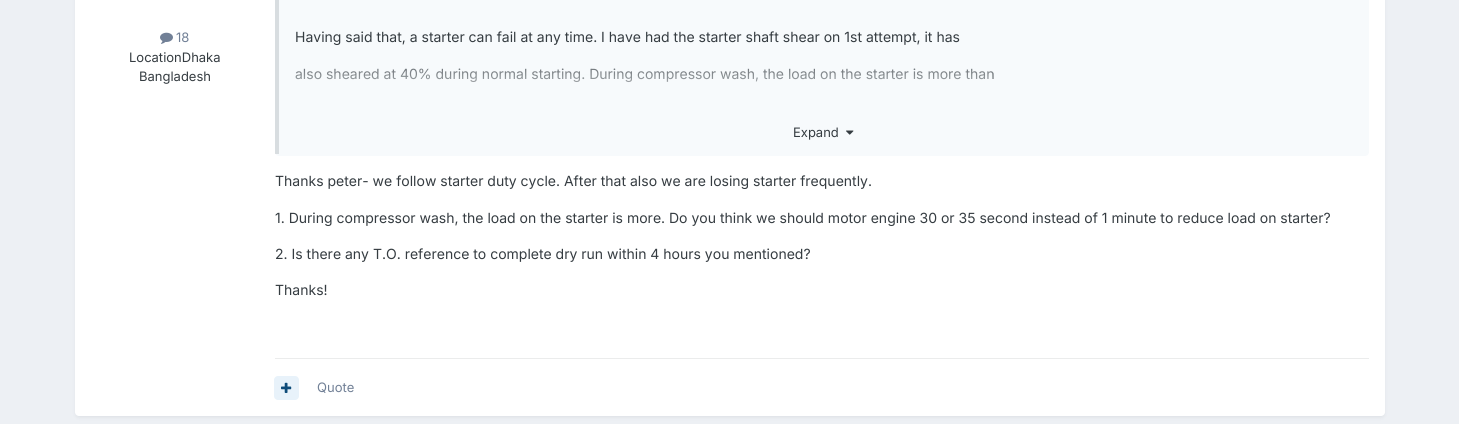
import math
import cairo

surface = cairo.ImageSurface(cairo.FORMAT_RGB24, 1459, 424)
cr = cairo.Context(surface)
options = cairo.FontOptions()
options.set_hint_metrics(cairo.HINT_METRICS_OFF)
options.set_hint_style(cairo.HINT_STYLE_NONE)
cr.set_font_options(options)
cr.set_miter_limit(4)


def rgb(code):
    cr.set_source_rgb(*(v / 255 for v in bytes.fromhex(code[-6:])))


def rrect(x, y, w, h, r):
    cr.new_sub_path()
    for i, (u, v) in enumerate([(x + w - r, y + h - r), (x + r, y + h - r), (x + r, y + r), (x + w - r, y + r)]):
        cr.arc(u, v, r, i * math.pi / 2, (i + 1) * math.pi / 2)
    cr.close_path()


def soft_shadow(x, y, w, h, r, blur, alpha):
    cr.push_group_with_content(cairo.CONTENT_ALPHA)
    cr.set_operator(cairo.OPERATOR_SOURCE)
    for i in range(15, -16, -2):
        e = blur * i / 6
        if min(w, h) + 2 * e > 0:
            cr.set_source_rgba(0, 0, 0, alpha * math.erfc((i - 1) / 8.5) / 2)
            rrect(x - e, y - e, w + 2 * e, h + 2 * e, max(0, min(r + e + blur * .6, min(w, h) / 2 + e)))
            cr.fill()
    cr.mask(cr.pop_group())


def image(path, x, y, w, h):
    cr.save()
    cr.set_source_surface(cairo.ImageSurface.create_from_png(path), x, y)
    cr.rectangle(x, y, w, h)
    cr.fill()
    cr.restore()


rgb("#edf0f4")
cr.paint()
rgb("#2d3748")
soft_shadow(76, -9, 1308, 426, 3, 2, 0.1)
rgb("#ffffff")
rrect(75, -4, 1310, 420, 4)
cr.fill()
image("img/1.png", 160, 32, 13, 12)
rgb("#f7fafc")
rrect(275, -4, 1094, 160, 4)
cr.fill()
cr.set_source_rgba(0.176, 0.216, 0.282, 0.15)
cr.rectangle(275, 0, 4, 154)
cr.fill()
image("img/2.png", 846, 130, 8, 5)
rgb("#ebecec")
cr.rectangle(275, 358, 1094, 1)
cr.fill()
rgb("#e8f2fa")
rrect(274, 376, 25, 24, 4)
cr.fill()
image("img/3.png", 281, 382, 11, 11)
cr.select_font_face("Inter")
cr.set_font_size(13)
rgb("#718096")
cr.move_to(176, 42)
cr.show_text("18")
rgb("#353c41")
cr.move_to(129, 62)
cr.show_text("LocationDhaka")
cr.move_to(139, 81)
cr.show_text("Bangladesh")
cr.set_font_size(14)
cr.move_to(295, 42)
cr.show_text("Having said that, a starter can fail at any time. I have had the starter shaft shear on 1st attempt, it has")
cr.move_to(295, 79)
cr.show_text("also sheared at 40% during normal starting. During compressor wash, the load on the starter is more than")
gradient = cairo.LinearGradient(824, 50, 824, 110)
gradient.add_color_stop_rgba(0, 0.969, 0.98, 0.988, 0.01)
gradient.add_color_stop_rgba(1, 0.969, 0.98, 0.988, 0.99)
cr.set_source(gradient)
cr.rectangle(295, 68, 698, 14)
cr.fill()
cr.set_font_size(13)
rgb("#353c41")
cr.move_to(793, 137)
cr.show_text("Expand")
cr.set_font_size(14)
for x, y, s in [
    (275, 186, "Thanks peter- we follow starter duty cycle. After that also we are losing starter frequently."),
    (275, 223, "1. During compressor wash, the load on the starter is more. Do you think we should motor engine 30 or 35 second instead of 1 minute to reduce load on starter?"),
    (275, 259, "2. Is there any T.O. reference to complete dry run within 4 hours you mentioned?"),
    (275, 295, "Thanks!"),
]:
    cr.move_to(x, y)
    cr.show_text(s)
cr.set_font_size(13)
rgb("#718096")
cr.move_to(317, 392)
cr.show_text("Quote")
surface.write_to_png("page.png")
